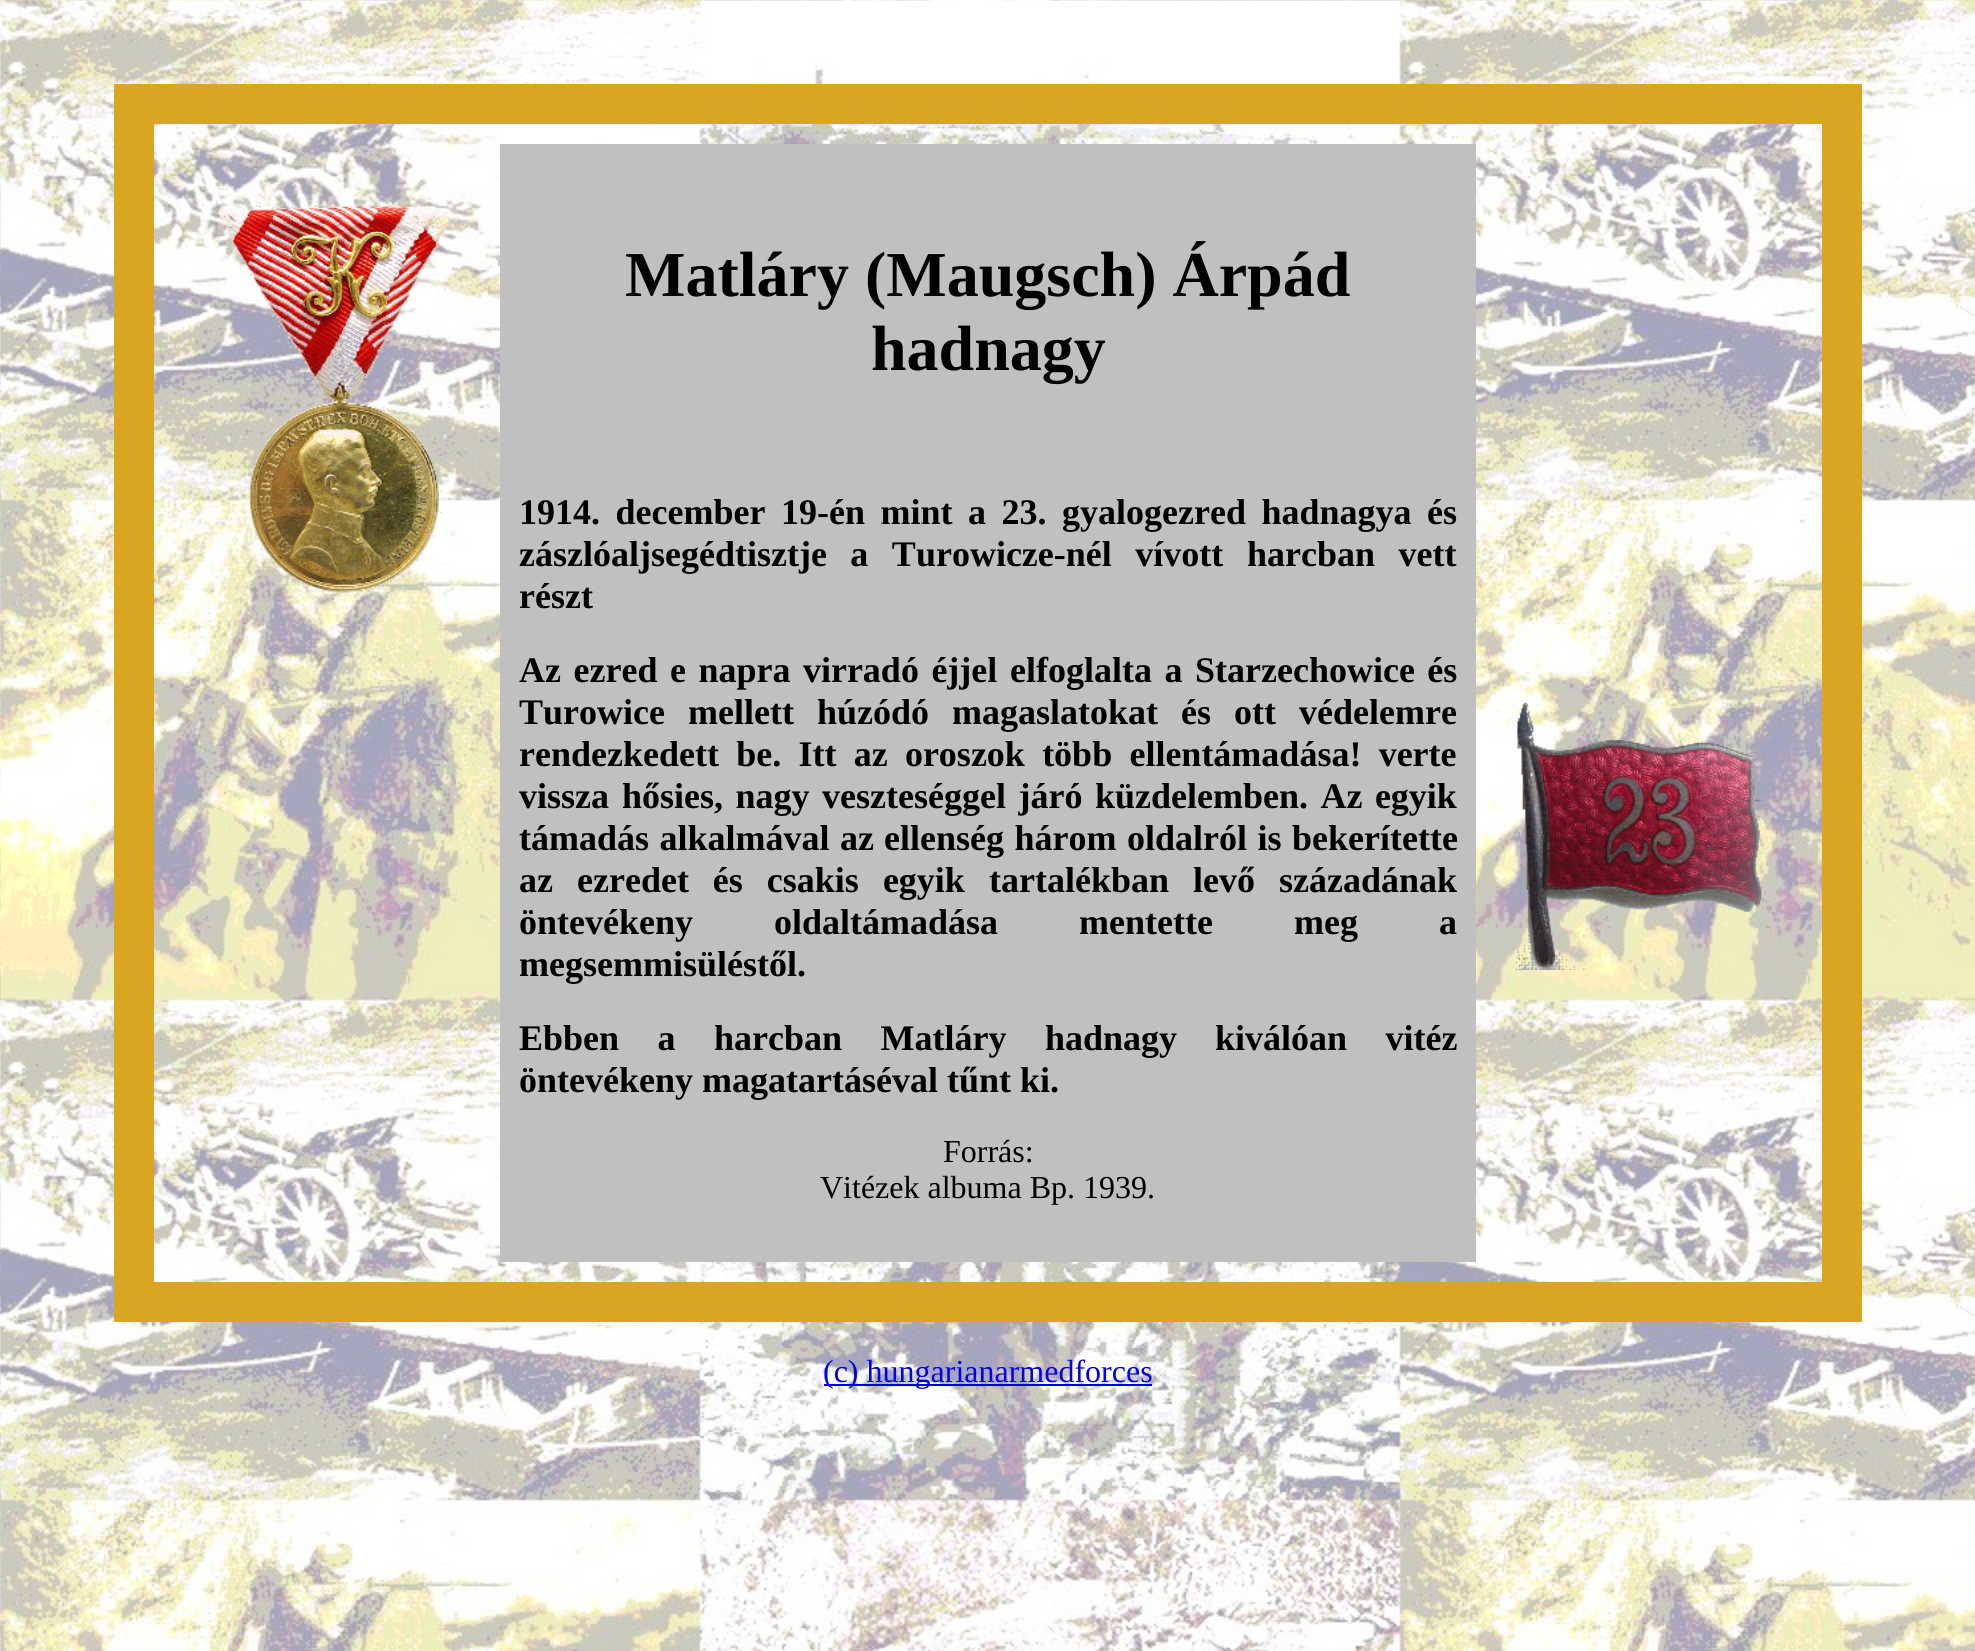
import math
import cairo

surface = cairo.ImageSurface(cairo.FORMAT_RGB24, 1975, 1651)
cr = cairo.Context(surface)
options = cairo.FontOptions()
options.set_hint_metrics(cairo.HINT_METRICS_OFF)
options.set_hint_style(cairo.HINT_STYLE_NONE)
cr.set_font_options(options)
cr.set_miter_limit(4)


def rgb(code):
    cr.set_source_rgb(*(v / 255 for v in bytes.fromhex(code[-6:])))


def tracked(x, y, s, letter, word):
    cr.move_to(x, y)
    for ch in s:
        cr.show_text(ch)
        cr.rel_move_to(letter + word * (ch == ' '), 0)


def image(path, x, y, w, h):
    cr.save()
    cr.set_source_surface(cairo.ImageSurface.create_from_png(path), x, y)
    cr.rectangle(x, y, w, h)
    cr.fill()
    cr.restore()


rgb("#ffffff")
cr.paint()
image("img/1.png", 0, 0, 1975, 1651)
for x, y, w, h, color in [
    (154, 84, 1668, 40, "#daa520"),
    (1822, 84, 40, 1198, "#daa520"),
    (154, 1282, 1708, 40, "#daa520"),
    (114, 84, 40, 1238, "#daa520"),
]:
    rgb(color)
    cr.rectangle(x, y, w, h)
    cr.fill()
image("img/2.png", 218, 205, 232, 388)
rgb("#c0c0c0")
cr.rectangle(500, 144, 976, 1118)
cr.fill()
image("img/3.png", 1516, 702, 246, 268)
rgb("#0000ee")
cr.rectangle(824, 1384, 328, 2)
cr.fill()
cr.select_font_face("Liberation Serif", cairo.FONT_SLANT_NORMAL, cairo.FONT_WEIGHT_BOLD)
cr.set_font_size(64)
rgb("#000000")
cr.move_to(625, 296)
cr.show_text("Matláry (Maugsch) Árpád")
cr.move_to(871, 370)
cr.show_text("hadnagy")
cr.set_font_size(36)
tracked(519, 524, "1914. december 19-én mint a 23.", 0, 6.5)
tracked(1062, 524, "gyalogezred hadnagya és", 0, 6.5)
tracked(519, 566, "zászlóaljsegédtisztje a Turowicze-nél vívott", 0, 14.5)
tracked(1247, 566, "harcban vett", 0, 14.5)
cr.move_to(519, 608)
cr.show_text("részt")
tracked(519, 682, "Az ezred e napra virradó éjjel", 0, 3.5)
tracked(1010, 682, "elfoglalta a Starzechowice és", 0, 3.5)
tracked(519, 724, "Turowice mellett húzódó magaslatokat és ott", 0, 14)
cr.move_to(1299, 724)
cr.show_text("védelemre")
tracked(519, 766, "rendezkedett be. Itt az oroszok több ellentámadása! verte", 0, 8.25)
cr.move_to(519, 808)
cr.show_text("vissza")
tracked(622, 808, "hősies, nagy veszteséggel járó küzdelemben. Az egyik", 0, 3.5)
tracked(519, 850, "támadás alkalmával az", 0, 1.5)
tracked(884, 850, "ellenség három oldalról is bekerítette", 0, 1.5)
tracked(519, 892, "az ezredet és csakis egyik", 0, 15)
tracked(989, 892, "tartalékban levő századának", 0, 15)
tracked(519, 934, "öntevékeny oldaltámadása mentette meg a", 0, 72)
cr.move_to(519, 976)
cr.show_text("megsemmisüléstől.")
tracked(519, 1050, "Ebben a harcban Matláry hadnagy", 0, 29.5)
tracked(1215, 1050, "kiválóan vitéz", 0, 29.5)
cr.move_to(519, 1092)
cr.show_text("öntevékeny magatartáséval tűnt ki.")
cr.select_font_face("Liberation Serif")
cr.set_font_size(32)
cr.move_to(943, 1162)
cr.show_text("Forrás:")
cr.move_to(820, 1198)
cr.show_text("Vitézek albuma Bp. 1939.")
rgb("#0000ee")
cr.move_to(823, 1382)
cr.show_text("(c) hungarianarmedforces")
surface.write_to_png("page.png")
